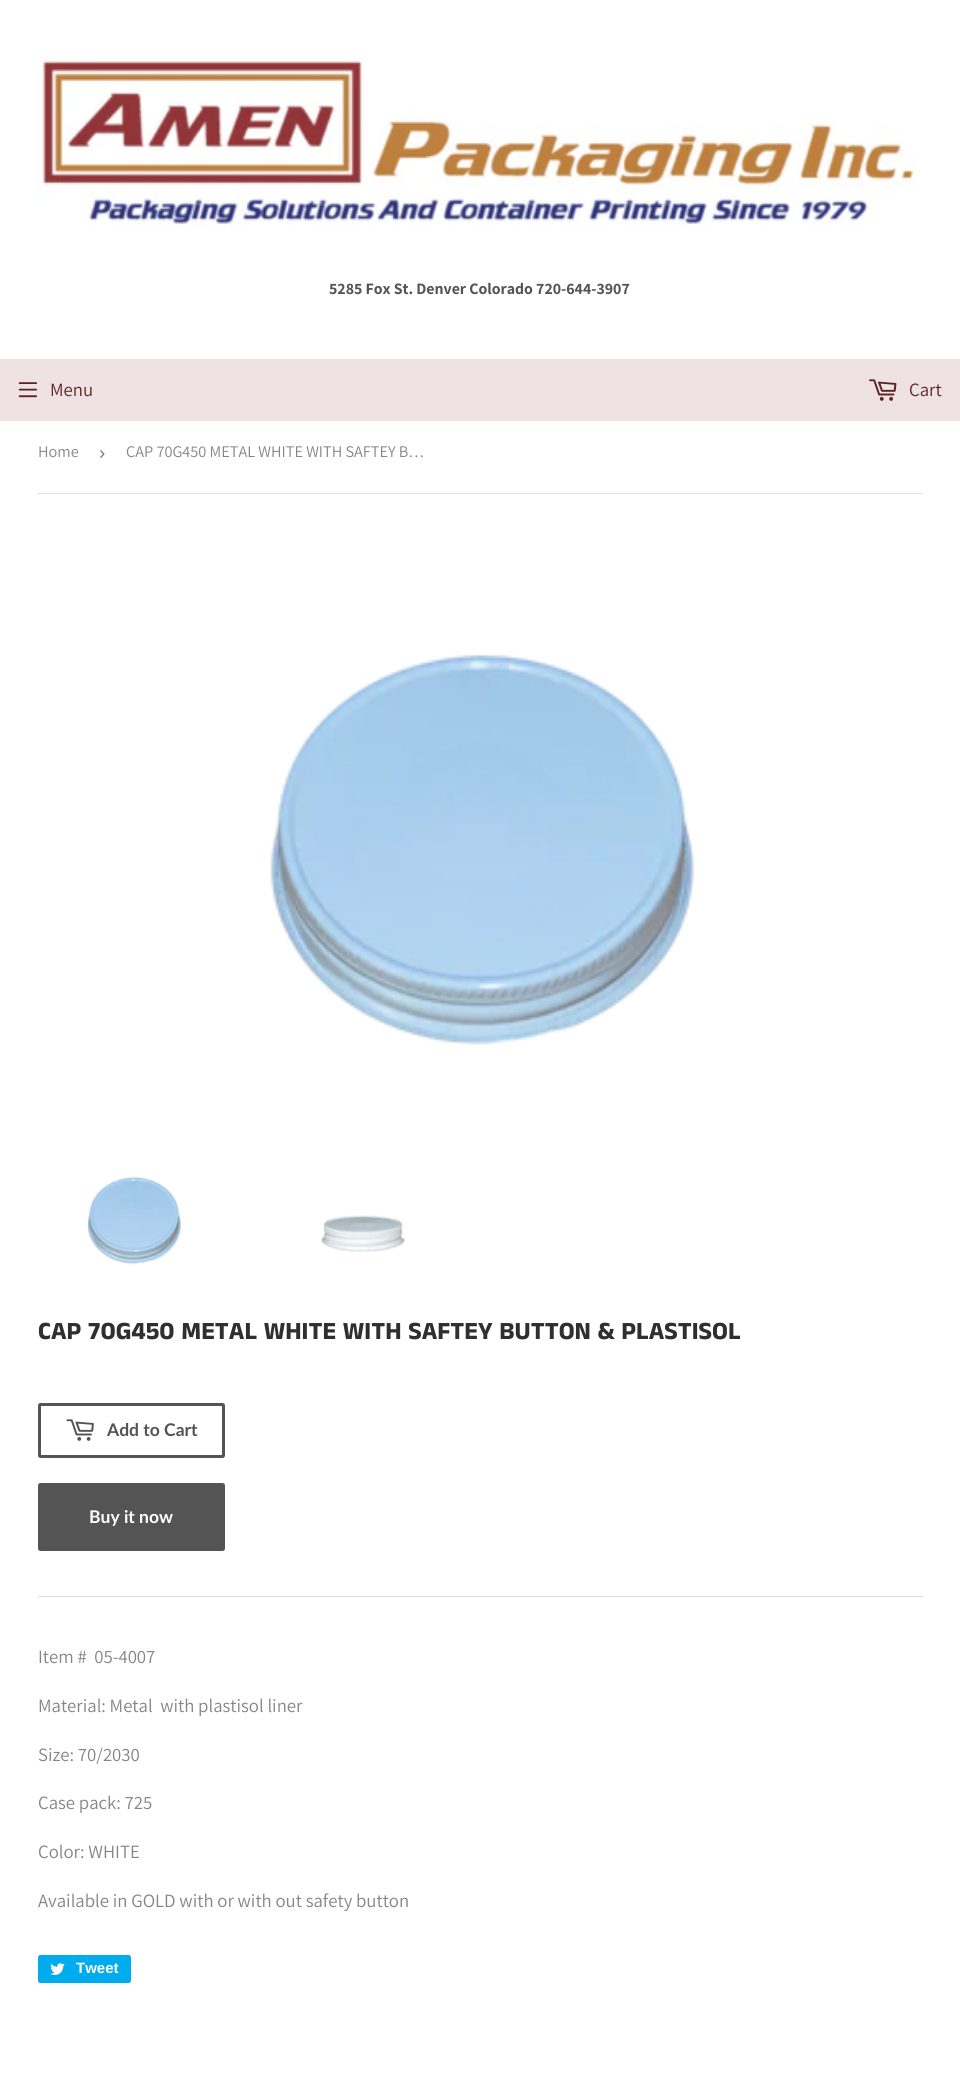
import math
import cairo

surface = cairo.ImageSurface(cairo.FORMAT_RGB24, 960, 2080)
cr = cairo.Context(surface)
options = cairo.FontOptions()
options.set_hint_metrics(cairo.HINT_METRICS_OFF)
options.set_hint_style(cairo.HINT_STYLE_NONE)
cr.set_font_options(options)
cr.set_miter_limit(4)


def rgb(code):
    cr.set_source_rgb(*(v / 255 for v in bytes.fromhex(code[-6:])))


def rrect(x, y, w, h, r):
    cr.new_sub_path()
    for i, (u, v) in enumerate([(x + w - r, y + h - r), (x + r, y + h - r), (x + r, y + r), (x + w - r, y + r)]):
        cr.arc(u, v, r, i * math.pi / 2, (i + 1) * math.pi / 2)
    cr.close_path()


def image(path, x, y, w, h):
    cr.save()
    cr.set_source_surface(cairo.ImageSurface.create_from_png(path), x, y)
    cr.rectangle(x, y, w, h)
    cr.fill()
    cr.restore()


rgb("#ffffff")
cr.paint()
image("img/1.png", 37, 56, 879, 171)
rgb("#eee3e2")
cr.rectangle(0, 359, 960, 62)
cr.fill()
image("img/2.png", 18, 382, 20, 16)
image("img/3.png", 869, 379, 28, 22)
rgb("#dedede")
cr.rectangle(38, 493, 885, 1)
cr.fill()
image("img/4.png", 270, 654, 425, 391)
image("img/5.png", 87, 1176, 94, 89)
image("img/6.png", 321, 1215, 84, 37)
rrect(39.5, 1404.5, 184, 52, 1)
rgb("#545454")
cr.set_line_width(3)
cr.stroke()
image("img/7.png", 66, 1419, 28, 22)
rrect(38, 1483, 187, 68, 2.5)
cr.fill()
rgb("#dedede")
cr.rectangle(38, 1596, 885, 1)
cr.fill()
rgb("#00aced")
rrect(38, 1955, 93, 28, 2.5)
cr.fill()
image("img/8.png", 50, 1963, 15, 12)
cr.select_font_face("Assistant", cairo.FONT_SLANT_NORMAL, cairo.FONT_WEIGHT_BOLD)
cr.set_font_size(15.9)
rgb("#545454")
cr.move_to(329, 294)
cr.show_text("5285 Fox St. Denver Colorado 720-644-3907")
cr.select_font_face("Assistant")
cr.set_font_size(18.75)
rgb("#5d2525")
cr.move_to(50, 396)
cr.show_text("Menu")
cr.move_to(909, 396)
cr.show_text("Cart")
cr.set_font_size(16.25)
rgb("#858585")
cr.move_to(38, 457)
cr.show_text("Home")
cr.select_font_face("Liberation Sans")
cr.set_font_size(18.75)
rgb("#767676")
cr.move_to(99, 459)
cr.show_text("›")
cr.select_font_face("Assistant")
cr.set_font_size(16.25)
rgb("#858585")
cr.move_to(126, 457)
cr.show_text("CAP 70G450 METAL WHITE WITH SAFTEY B…")
cr.select_font_face("Anek Tamil", cairo.FONT_SLANT_NORMAL, cairo.FONT_WEIGHT_BOLD)
cr.set_font_size(25)
rgb("#2f2f2f")
cr.move_to(38, 1339)
cr.show_text("CAP 70G450 METAL WHITE WITH SAFTEY BUTTON & PLASTISOL")
cr.select_font_face("Lato", cairo.FONT_SLANT_NORMAL, cairo.FONT_WEIGHT_BOLD)
cr.set_font_size(17.5)
rgb("#545454")
cr.move_to(107, 1436)
cr.show_text("Add to Cart")
rgb("#ffffff")
cr.move_to(89, 1523)
cr.show_text("Buy it now")
cr.select_font_face("Assistant")
cr.set_font_size(18.75)
rgb("#858585")
for x, y, s in [
    (38, 1663, "Item #  05-4007"),
    (38, 1712, "Material: Metal  with plastisol liner"),
    (38, 1761, "Size: 70/2030"),
    (38, 1809, "Case pack: 725"),
    (38, 1858, "Color: WHITE"),
    (38, 1907, "Available in GOLD with or with out safety button"),
]:
    cr.move_to(x, y)
    cr.show_text(s)
cr.select_font_face("Liberation Sans", cairo.FONT_SLANT_NORMAL, cairo.FONT_WEIGHT_BOLD)
cr.set_font_size(15)
rgb("#ffffff")
cr.move_to(76, 1973)
cr.show_text("Tweet")
surface.write_to_png("page.png")
